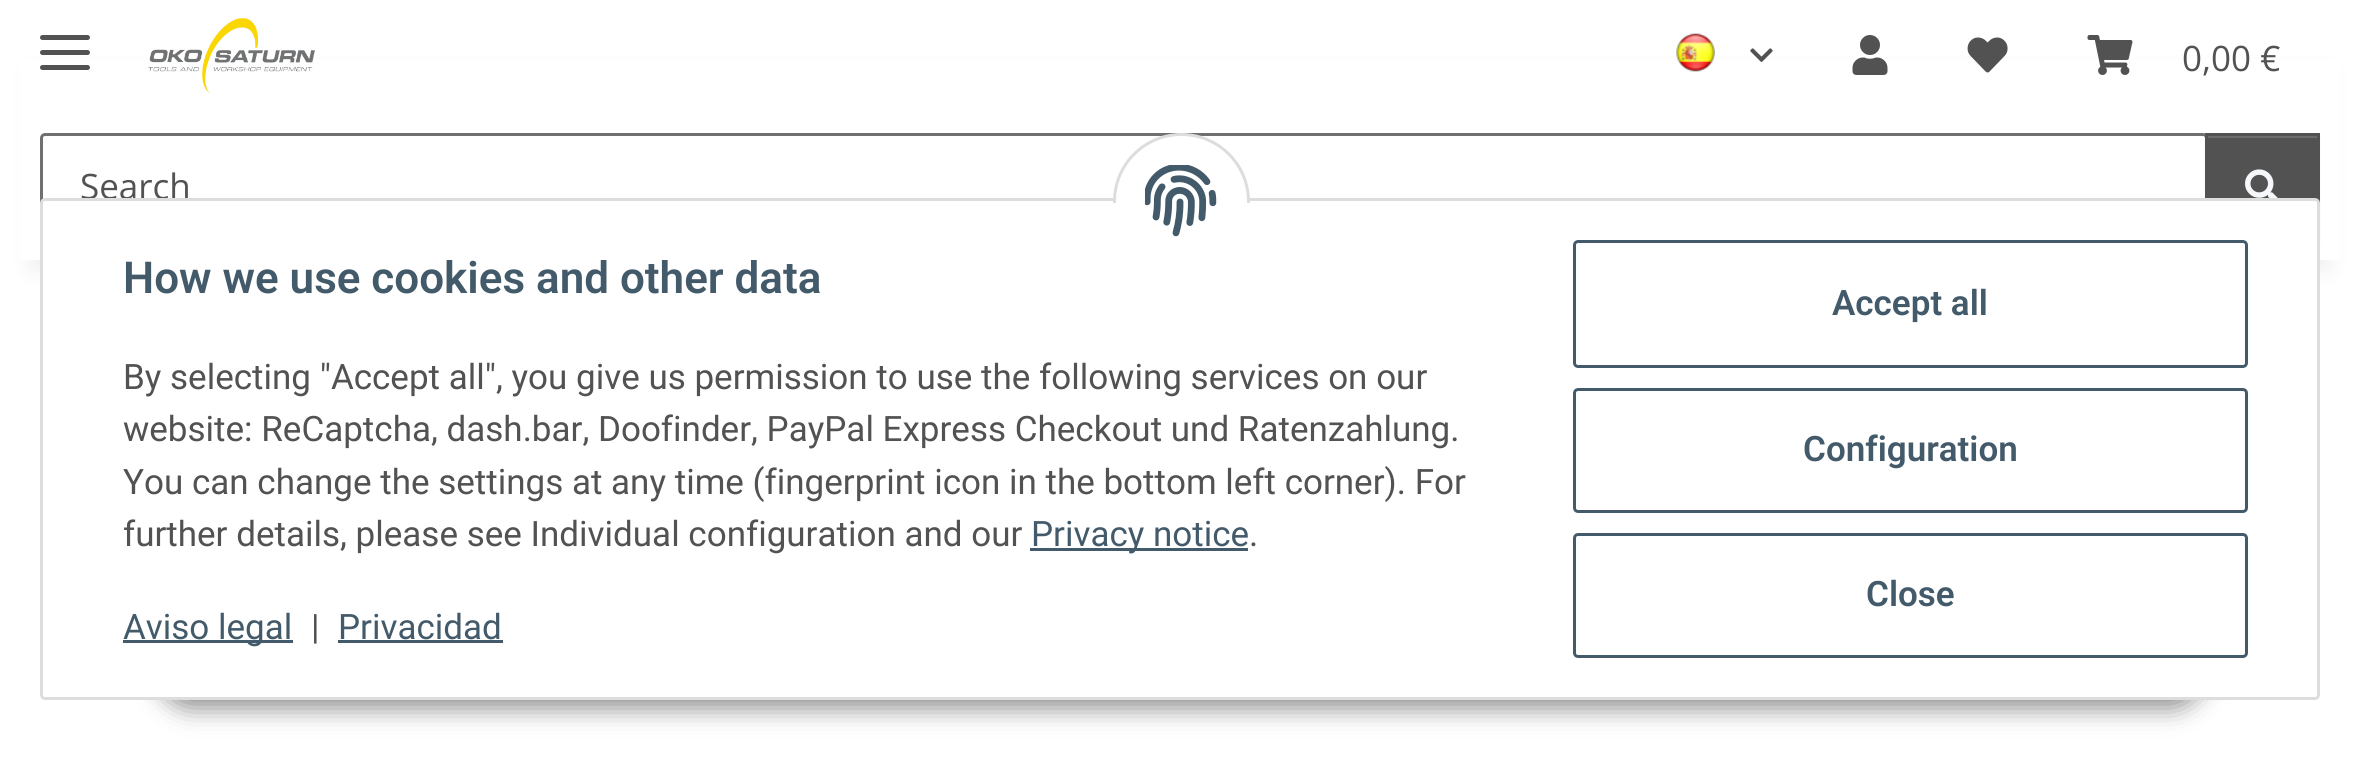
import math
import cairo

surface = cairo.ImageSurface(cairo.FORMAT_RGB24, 2360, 778)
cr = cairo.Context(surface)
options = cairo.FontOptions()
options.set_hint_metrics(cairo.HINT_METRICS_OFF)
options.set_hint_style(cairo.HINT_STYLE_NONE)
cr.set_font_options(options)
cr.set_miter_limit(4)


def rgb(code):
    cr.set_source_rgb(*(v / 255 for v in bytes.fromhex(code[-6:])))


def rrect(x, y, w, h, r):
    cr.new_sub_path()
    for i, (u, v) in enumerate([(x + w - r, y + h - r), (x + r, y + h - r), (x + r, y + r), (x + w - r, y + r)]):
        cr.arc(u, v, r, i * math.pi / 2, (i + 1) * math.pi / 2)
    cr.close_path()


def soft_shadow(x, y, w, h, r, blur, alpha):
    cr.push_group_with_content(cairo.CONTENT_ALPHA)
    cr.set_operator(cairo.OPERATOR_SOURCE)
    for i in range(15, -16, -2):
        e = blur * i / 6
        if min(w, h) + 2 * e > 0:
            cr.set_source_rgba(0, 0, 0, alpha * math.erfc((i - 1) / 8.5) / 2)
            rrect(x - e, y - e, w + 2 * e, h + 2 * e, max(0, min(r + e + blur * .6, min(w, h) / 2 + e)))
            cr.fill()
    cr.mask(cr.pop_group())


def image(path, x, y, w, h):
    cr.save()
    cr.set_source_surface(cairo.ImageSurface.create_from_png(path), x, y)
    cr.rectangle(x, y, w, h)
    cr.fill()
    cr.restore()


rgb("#ffffff")
cr.paint()
rgb("#000000")
soft_shadow(30, 70, 2300, 200, 0, 11, 0.06)
rgb("#ffffff")
cr.rectangle(19, 59, 2322, 201)
cr.fill()
rgb("#525252")
rrect(40, 50, 50, 5, 2.5)
cr.fill()
rrect(40, 35, 50, 5, 2.5)
cr.fill()
rrect(40, 65, 50, 5, 2.5)
cr.fill()
image("img/1.png", 148, 18, 167, 76)
image("img/2.png", 1676, 33, 39, 40)
image("img/3.png", 1750, 48, 23, 14)
image("img/4.png", 1852, 35, 36, 40)
image("img/5.png", 1967, 37, 41, 36)
image("img/6.png", 2087, 35, 46, 40)
rrect(41.5, 134.5, 2165, 104, 3.5)
rgb("#707070")
cr.set_line_width(3)
cr.stroke()
rgb("#000000")
soft_shadow(2205, 135, 115, 108, 0, 1, 0.07)
rgb("#525252")
cr.rectangle(2208, 138, 109, 61)
cr.fill()
rgb("#6c6c6c")
cr.rectangle(2208, 136, 110, 2)
cr.fill()
cr.rectangle(2206.5, 134.5, 112, 104)
rgb("#525252")
cr.stroke()
image("img/7.png", 2245, 169, 33, 29)
rgb("#000000")
soft_shadow(158, 628, 2047, 80, 40, 12.5, 0.45)
cr.select_font_face("Open Sans")
cr.set_font_size(35)
rgb("#525252")
cr.move_to(2182, 71)
cr.show_text("0,00 €")
cr.move_to(80, 199)
cr.show_text("Search")
rgb("#ffffff")
rrect(41.5, 199.5, 2277, 499, 3.5)
cr.fill_preserve()
rgb("#dddddd")
cr.stroke()
rgb("#ffffff")
cr.arc(1181.5, 201.5, 67, 0, 2 * math.pi)
cr.fill_preserve()
rgb("#dddddd")
cr.stroke()
rgb("#ffffff")
cr.rectangle(1113, 203, 137, 67)
cr.fill()
image("img/8.png", 1145, 165, 72, 72)
cr.select_font_face("Roboto SemiBold")
cr.set_font_size(44)
rgb("#435a6b")
cr.move_to(123, 293)
cr.show_text("How we use cookies and other data")
cr.select_font_face("Roboto")
cr.set_font_size(35)
rgb("#525252")
for x, y, s in [
    (123, 389, "By selecting \"Accept all\", you give us permission to use the following services on our"),
    (123, 441, "website: ReCaptcha, dash.bar, Doofinder, PayPal Express Checkout und Ratenzahlung."),
    (123, 494, "You can change the settings at any time (fingerprint icon in the bottom left corner). For"),
    (123, 546, "further details, please see Individual configuration and our"),
]:
    cr.move_to(x, y)
    cr.show_text(s)
rgb("#435a6b")
cr.rectangle(1030, 548, 218, 3)
cr.fill()
cr.move_to(1031, 546)
cr.show_text("Privacy notice")
rgb("#525252")
cr.move_to(1249, 546)
cr.show_text(".")
rgb("#435a6b")
cr.rectangle(123, 640, 170, 3)
cr.fill()
cr.move_to(123, 639)
cr.show_text("Aviso legal")
rgb("#525252")
cr.move_to(311, 639)
cr.show_text("|")
rgb("#435a6b")
cr.move_to(338, 639)
cr.show_text("Privacidad")
cr.rectangle(338, 640, 165, 3)
cr.fill()
rrect(1574.5, 241.5, 672, 125, 3.5)
cr.stroke()
cr.select_font_face("Roboto SemiBold")
cr.move_to(1832, 315)
cr.show_text("Accept all")
rrect(1574.5, 389.5, 672, 122, 3.5)
cr.stroke()
cr.move_to(1803, 461)
cr.show_text("Configuration")
rrect(1574.5, 534.5, 672, 122, 3.5)
cr.stroke()
cr.move_to(1866, 606)
cr.show_text("Close")
surface.write_to_png("page.png")
